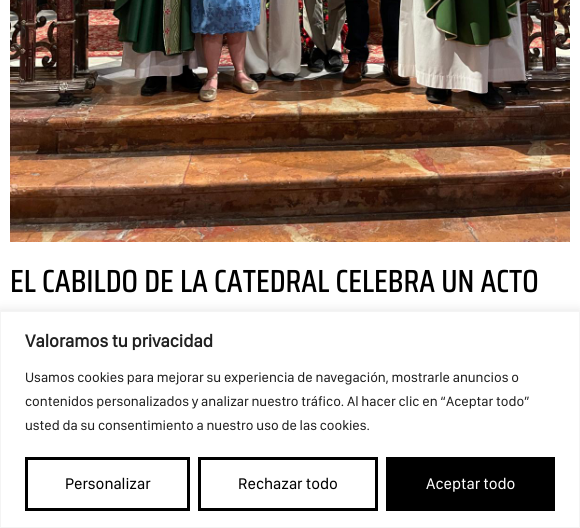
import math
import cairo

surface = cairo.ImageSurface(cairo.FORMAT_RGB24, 580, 528)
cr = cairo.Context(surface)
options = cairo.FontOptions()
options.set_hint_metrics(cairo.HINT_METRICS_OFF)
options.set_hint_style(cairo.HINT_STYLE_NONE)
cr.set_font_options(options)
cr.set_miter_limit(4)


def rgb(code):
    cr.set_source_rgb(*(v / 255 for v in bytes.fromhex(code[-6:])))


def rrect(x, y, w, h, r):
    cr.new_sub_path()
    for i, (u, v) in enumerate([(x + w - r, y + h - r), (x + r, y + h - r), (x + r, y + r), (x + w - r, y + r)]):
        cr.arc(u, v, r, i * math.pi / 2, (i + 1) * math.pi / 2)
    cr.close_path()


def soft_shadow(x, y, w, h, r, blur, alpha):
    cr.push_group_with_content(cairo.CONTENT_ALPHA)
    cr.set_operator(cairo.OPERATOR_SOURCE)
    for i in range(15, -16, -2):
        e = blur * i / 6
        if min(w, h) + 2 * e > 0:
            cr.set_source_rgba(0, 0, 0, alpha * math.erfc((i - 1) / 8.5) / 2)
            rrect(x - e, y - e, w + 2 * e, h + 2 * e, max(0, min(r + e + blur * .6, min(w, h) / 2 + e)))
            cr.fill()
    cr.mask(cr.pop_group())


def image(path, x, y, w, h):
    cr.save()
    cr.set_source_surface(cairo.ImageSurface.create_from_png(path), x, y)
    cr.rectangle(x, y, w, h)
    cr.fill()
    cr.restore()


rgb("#ffffff")
cr.paint()
image("img/1.png", 10, 0, 560, 242)
rgb("#acabab")
soft_shadow(0, 310, 580, 217, 0, 5, 0.3)
rgb("#ffffff")
cr.rectangle(0.5, 311.5, 579, 216)
cr.fill_preserve()
rgb("#f4f4f4")
cr.set_line_width(1)
cr.stroke()
cr.rectangle(26.5, 458.5, 162, 51)
rgb("#000000")
cr.set_line_width(3)
cr.stroke()
cr.rectangle(199.5, 458.5, 177, 51)
cr.stroke()
cr.rectangle(386, 457, 169, 54)
cr.fill()
cr.select_font_face("Saira Condensed Medium")
cr.set_font_size(32)
cr.move_to(10, 292)
cr.show_text("EL CABILDO DE LA CATEDRAL CELEBRA UN ACTO")
cr.select_font_face("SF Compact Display", cairo.FONT_SLANT_NORMAL, cairo.FONT_WEIGHT_BOLD)
cr.set_font_size(18)
rgb("#212121")
cr.move_to(25, 347)
cr.show_text("Valoramos tu privacidad")
cr.select_font_face("SF Compact Display")
cr.set_font_size(14)
for x, y, s in [
    (25, 382, "Usamos cookies para mejorar su experiencia de navegación, mostrarle anuncios o"),
    (25, 406, "contenidos personalizados y analizar nuestro tráfico. Al hacer clic en “Aceptar todo”"),
    (25, 430, "usted da su consentimiento a nuestro uso de las cookies."),
]:
    cr.move_to(x, y)
    cr.show_text(s)
cr.set_font_size(16)
rgb("#000000")
cr.move_to(65, 489)
cr.show_text("Personalizar")
cr.move_to(238, 489)
cr.show_text("Rechazar todo")
rgb("#ffffff")
cr.move_to(426, 489)
cr.show_text("Aceptar todo")
surface.write_to_png("page.png")
